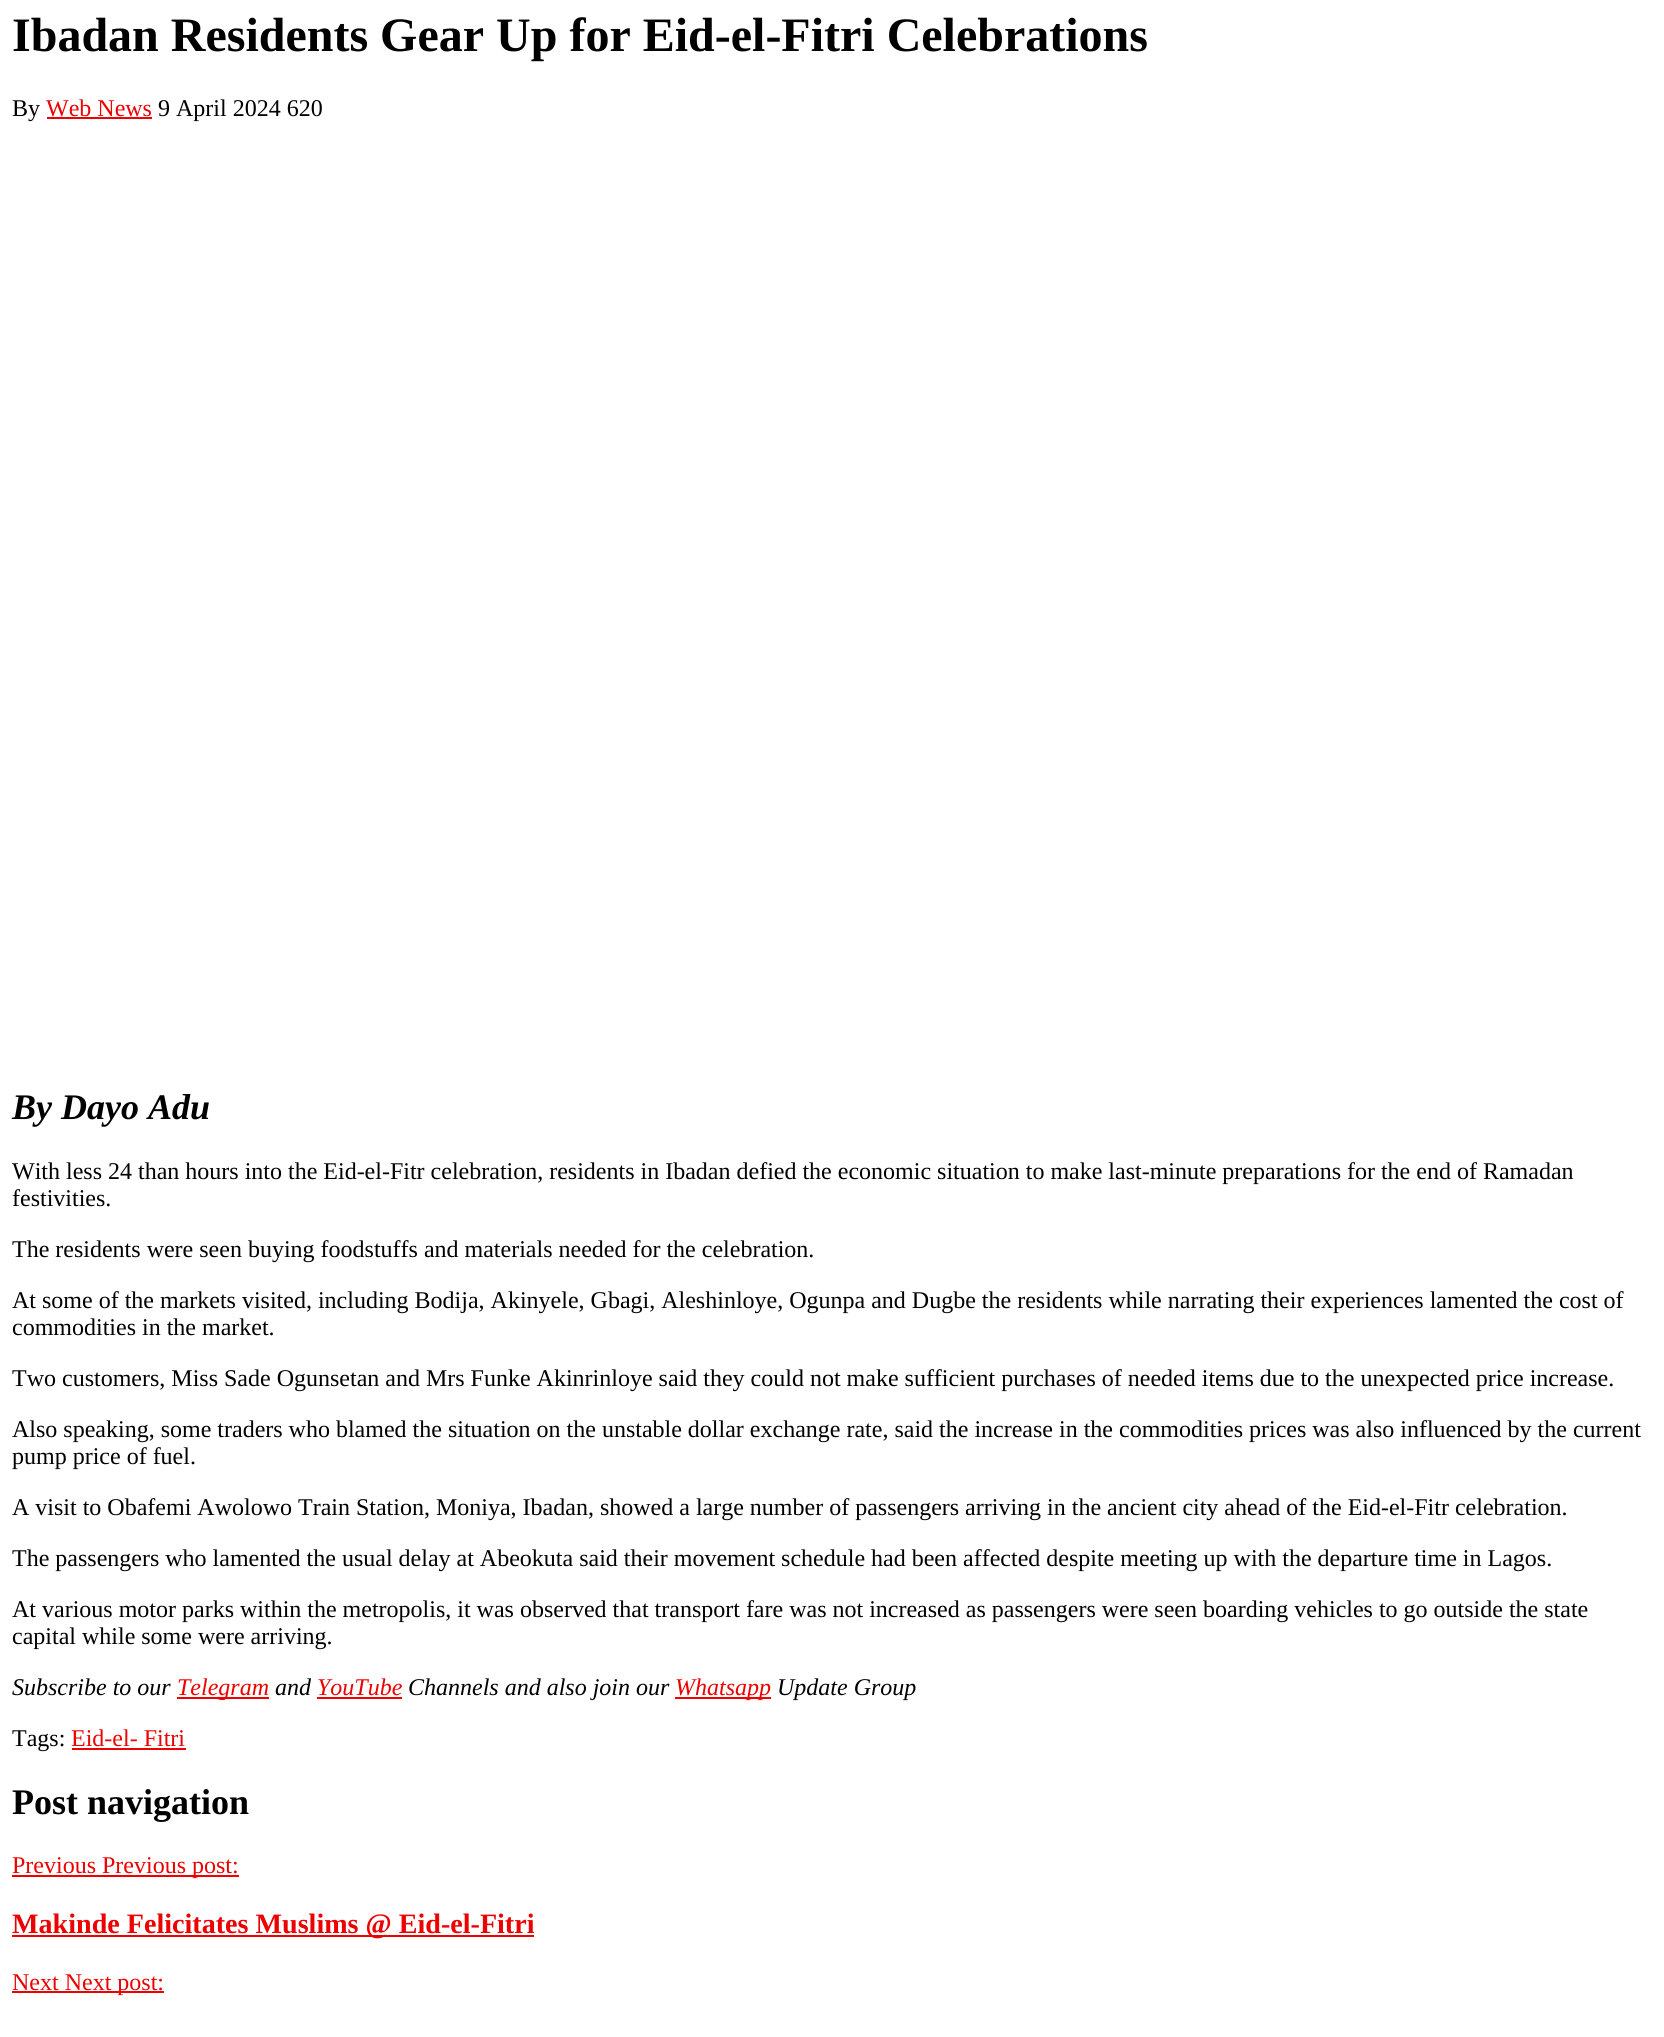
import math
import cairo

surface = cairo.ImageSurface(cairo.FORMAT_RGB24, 1664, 2037)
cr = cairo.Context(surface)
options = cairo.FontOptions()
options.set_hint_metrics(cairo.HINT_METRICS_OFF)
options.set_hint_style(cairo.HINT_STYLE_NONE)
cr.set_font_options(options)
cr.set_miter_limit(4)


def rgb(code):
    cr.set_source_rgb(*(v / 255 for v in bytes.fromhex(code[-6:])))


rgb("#ffffff")
cr.paint()
for x, y, w, h, color in [
    (47, 117, 105, 2, "#ec0000"),
    (177, 1697, 92, 2, "#ec0000"),
    (317, 1697, 85, 2, "#ec0000"),
    (675, 1697, 96, 2, "#ec0000"),
    (72, 1748, 114, 2, "#ec0000"),
    (12, 1875, 227, 2, "#ec0000"),
    (12, 1935, 522, 2, "#ec0000"),
    (12, 1991, 152, 2, "#ec0000"),
]:
    rgb(color)
    cr.rectangle(x, y, w, h)
    cr.fill()
cr.select_font_face("Liberation Serif", cairo.FONT_SLANT_NORMAL, cairo.FONT_WEIGHT_BOLD)
cr.set_font_size(48)
rgb("#000000")
cr.move_to(12, 51)
cr.show_text("Ibadan Residents Gear Up for Eid-el-Fitri Celebrations")
cr.select_font_face("Liberation Serif")
cr.set_font_size(24)
cr.move_to(12, 116)
cr.show_text("By")
rgb("#ec0000")
cr.move_to(46, 116)
cr.show_text("Web News")
rgb("#000000")
cr.move_to(158, 116)
cr.show_text("9 April 2024 620")
cr.select_font_face("Liberation Serif", cairo.FONT_SLANT_ITALIC, cairo.FONT_WEIGHT_BOLD)
cr.set_font_size(36)
cr.move_to(12, 1119)
cr.show_text("By Dayo Adu")
cr.select_font_face("Liberation Serif")
cr.set_font_size(24)
for x, y, s in [
    (12, 1179, "With less 24 than hours into the Eid-el-Fitr celebration, residents in Ibadan defied the economic situation to make last-minute preparations for the end of Ramadan"),
    (12, 1206, "festivities."),
    (12, 1257, "The residents were seen buying foodstuffs and materials needed for the celebration."),
    (12, 1308, "At some of the markets visited, including Bodija, Akinyele, Gbagi, Aleshinloye, Ogunpa and Dugbe the residents while narrating their experiences lamented the cost of"),
    (12, 1335, "commodities in the market."),
    (12, 1386, "Two customers, Miss Sade Ogunsetan and Mrs Funke Akinrinloye said they could not make sufficient purchases of needed items due to the unexpected price increase."),
    (12, 1437, "Also speaking, some traders who blamed the situation on the unstable dollar exchange rate, said the increase in the commodities prices was also influenced by the current"),
    (12, 1464, "pump price of fuel."),
    (12, 1515, "A visit to Obafemi Awolowo Train Station, Moniya, Ibadan, showed a large number of passengers arriving in the ancient city ahead of the Eid-el-Fitr celebration."),
    (12, 1566, "The passengers who lamented the usual delay at Abeokuta said their movement schedule had been affected despite meeting up with the departure time in Lagos."),
    (12, 1617, "At various motor parks within the metropolis, it was observed that transport fare was not increased as passengers were seen boarding vehicles to go outside the state"),
    (12, 1644, "capital while some were arriving."),
]:
    cr.move_to(x, y)
    cr.show_text(s)
cr.select_font_face("Liberation Serif", cairo.FONT_SLANT_ITALIC)
cr.move_to(12, 1695)
cr.show_text("Subscribe to our")
rgb("#ec0000")
cr.move_to(177, 1695)
cr.show_text("Telegram")
rgb("#000000")
cr.move_to(275, 1695)
cr.show_text("and")
rgb("#ec0000")
cr.move_to(317, 1695)
cr.show_text("YouTube")
rgb("#000000")
cr.move_to(408, 1695)
cr.show_text("Channels and also join our")
rgb("#ec0000")
cr.move_to(675, 1695)
cr.show_text("Whatsapp")
rgb("#000000")
cr.move_to(777, 1695)
cr.show_text("Update Group")
cr.select_font_face("Liberation Serif")
cr.move_to(12, 1746)
cr.show_text("Tags:")
rgb("#ec0000")
cr.move_to(71, 1746)
cr.show_text("Eid-el- Fitri")
cr.select_font_face("Liberation Serif", cairo.FONT_SLANT_NORMAL, cairo.FONT_WEIGHT_BOLD)
cr.set_font_size(36)
rgb("#000000")
cr.move_to(12, 1814)
cr.show_text("Post navigation")
cr.select_font_face("Liberation Serif")
cr.set_font_size(24)
rgb("#ec0000")
cr.move_to(12, 1873)
cr.show_text("Previous Previous post:")
cr.select_font_face("Liberation Serif", cairo.FONT_SLANT_NORMAL, cairo.FONT_WEIGHT_BOLD)
cr.set_font_size(28.1)
cr.move_to(12, 1933)
cr.show_text("Makinde Felicitates Muslims @ Eid-el-Fitri")
cr.select_font_face("Liberation Serif")
cr.set_font_size(24)
cr.move_to(12, 1990)
cr.show_text("Next Next post:")
surface.write_to_png("page.png")
